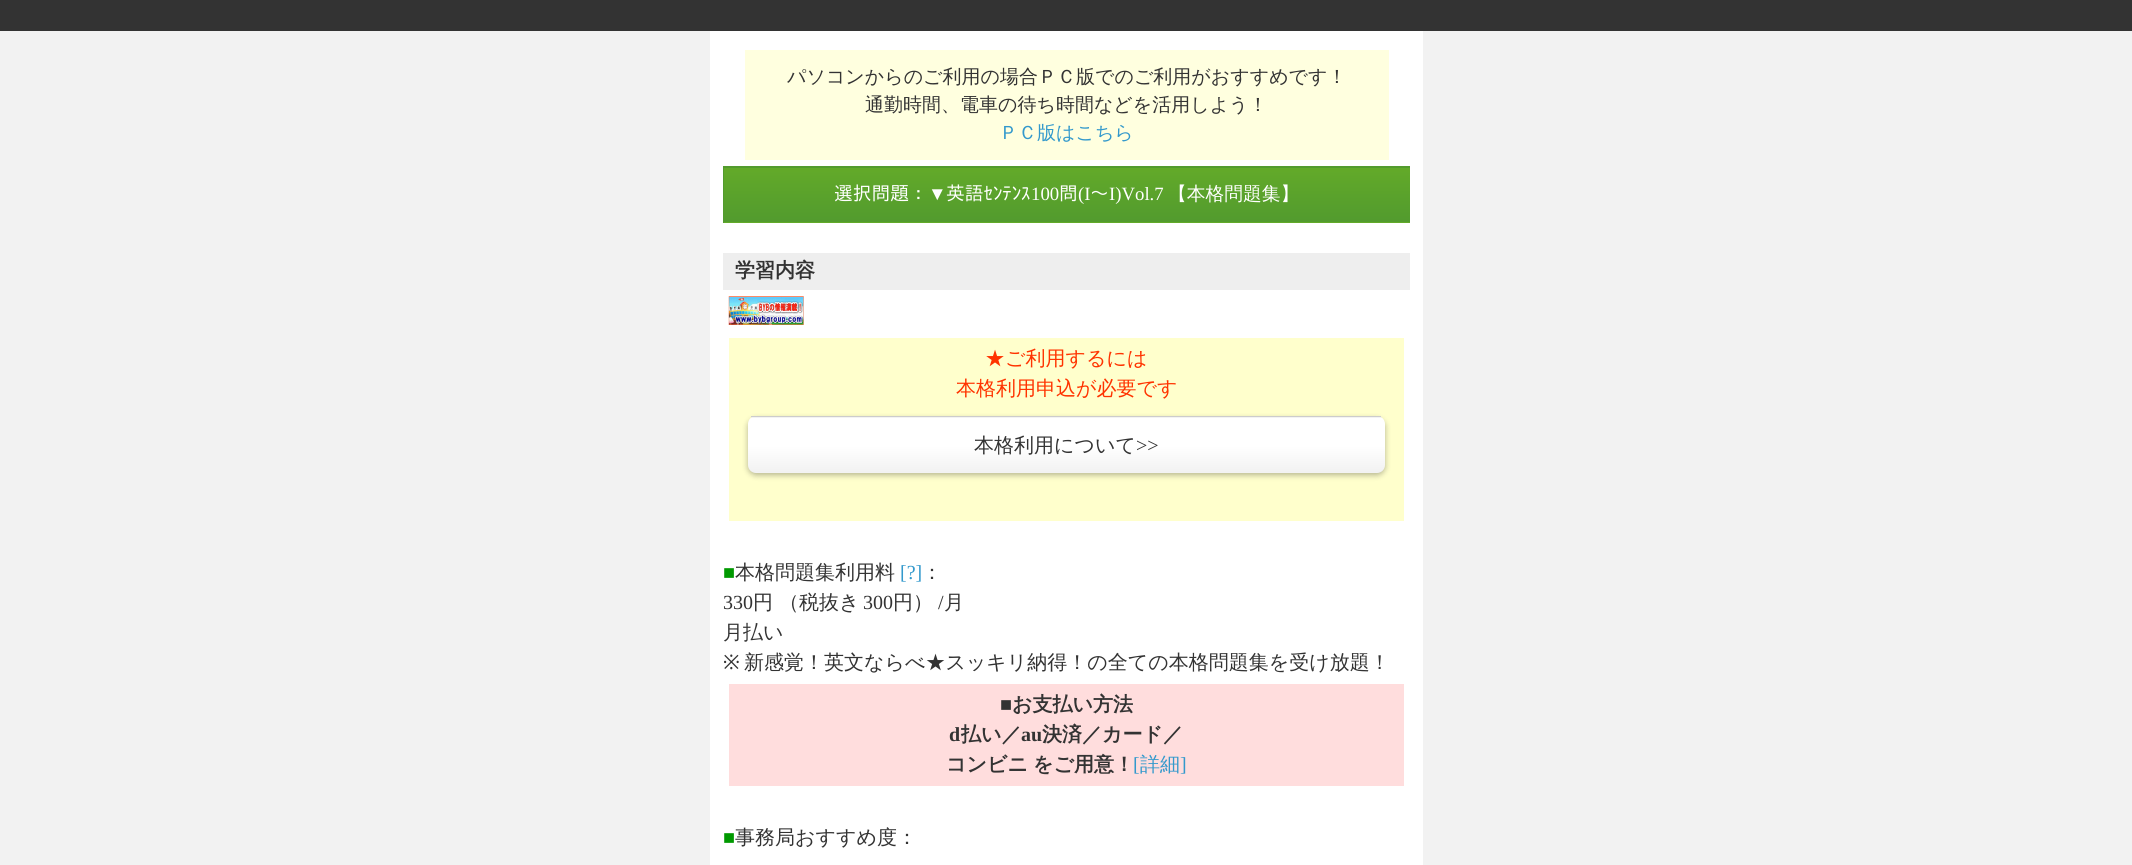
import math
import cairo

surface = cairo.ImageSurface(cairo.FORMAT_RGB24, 2132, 865)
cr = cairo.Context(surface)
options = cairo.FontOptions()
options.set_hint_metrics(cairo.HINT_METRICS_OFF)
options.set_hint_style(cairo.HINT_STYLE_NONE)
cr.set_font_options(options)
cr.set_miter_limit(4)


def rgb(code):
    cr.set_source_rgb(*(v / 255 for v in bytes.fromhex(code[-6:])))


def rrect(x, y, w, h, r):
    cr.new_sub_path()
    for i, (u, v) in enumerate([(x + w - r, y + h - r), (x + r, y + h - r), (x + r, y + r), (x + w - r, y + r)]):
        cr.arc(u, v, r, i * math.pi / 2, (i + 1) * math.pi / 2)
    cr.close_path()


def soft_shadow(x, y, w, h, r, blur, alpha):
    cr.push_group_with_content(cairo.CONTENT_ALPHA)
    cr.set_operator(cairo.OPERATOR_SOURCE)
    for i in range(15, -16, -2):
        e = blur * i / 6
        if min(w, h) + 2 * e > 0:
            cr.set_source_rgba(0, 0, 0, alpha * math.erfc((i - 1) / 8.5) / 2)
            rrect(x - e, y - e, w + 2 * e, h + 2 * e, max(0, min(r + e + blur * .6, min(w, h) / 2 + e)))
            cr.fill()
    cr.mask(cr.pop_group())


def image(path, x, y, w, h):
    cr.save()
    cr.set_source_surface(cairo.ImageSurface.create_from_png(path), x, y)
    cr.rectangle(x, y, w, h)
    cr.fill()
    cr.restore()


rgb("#333333")
cr.paint()
for x, y, w, h, color in [
    (0, 31, 2132, 834, "#f2f2f2"),
    (710, 31, 713, 834, "#ffffff"),
    (745, 50, 644, 110, "#ffffdf"),
]:
    rgb(color)
    cr.rectangle(x, y, w, h)
    cr.fill()
gradient = cairo.LinearGradient(1067, 114, 1067, 168)
gradient.add_color_stop_rgba(0, 0.388, 0.667, 0.161, 1)
gradient.add_color_stop_rgba(1, 0.322, 0.608, 0.18, 1)
cr.set_source(gradient)
cr.rectangle(723, 166, 687, 2)
cr.fill()
gradient = cairo.LinearGradient(1067, 167, 1067, 221)
gradient.add_color_stop_rgba(0, 0.388, 0.667, 0.161, 1)
gradient.add_color_stop_rgba(1, 0.322, 0.608, 0.18, 1)
cr.set_source(gradient)
cr.rectangle(724, 168, 686, 53)
cr.fill()
gradient = cairo.LinearGradient(1067, 221, 1067, 275)
gradient.add_color_stop_rgba(0, 0.388, 0.667, 0.161, 1)
gradient.add_color_stop_rgba(1, 0.322, 0.608, 0.18, 1)
cr.set_source(gradient)
cr.rectangle(723, 222, 687, 1)
cr.fill()
for x, y, w, h, color in [
    (723, 221, 687, 1, "#529b2e"),
    (723, 166, 1, 57, "#529b2e"),
    (723, 253, 687, 37, "#eeeeee"),
]:
    rgb(color)
    cr.rectangle(x, y, w, h)
    cr.fill()
image("img/1.png", 728, 296, 76, 29)
rgb("#ffffcc")
cr.rectangle(729, 338, 675, 183)
cr.fill()
rgb("#000000")
soft_shadow(748, 419, 637, 56, 8, 3, 0.3)
cr.save()
rrect(748, 416, 637, 57, 8)
cr.clip()
gradient = cairo.LinearGradient(748, 363, 748, 418)
gradient.add_color_stop_rgba(0, 1, 1, 1, 1)
gradient.add_color_stop_rgba(0.5, 1, 1, 1, 1)
gradient.add_color_stop_rgba(0.99, 0.949, 0.949, 0.949, 1)
gradient.add_color_stop_rgba(1, 1, 1, 1, 1)
cr.set_source(gradient)
cr.rectangle(748, 417, 637, 1)
cr.fill()
gradient = cairo.LinearGradient(748, 418, 748, 473)
gradient.add_color_stop_rgba(0, 1, 1, 1, 1)
gradient.add_color_stop_rgba(0.5, 1, 1, 1, 1)
gradient.add_color_stop_rgba(0.99, 0.949, 0.949, 0.949, 1)
gradient.add_color_stop_rgba(1, 1, 1, 1, 1)
cr.set_source(gradient)
cr.new_path()
cr.move_to(748, 418)
cr.line_to(1385, 418)
cr.line_to(1385, 465)
cr.curve_to(1385, 469.5, 1381.5, 473, 1377, 473)
cr.line_to(756, 473)
cr.curve_to(751.5, 473, 748, 469.5, 748, 465)
cr.close_path()
cr.fill()
cr.restore()
rgb("#cccccc")
cr.rectangle(751, 416, 630, 1)
cr.fill()
rgb("#ffdddd")
cr.rectangle(729, 684, 675, 102)
cr.fill()
cr.select_font_face("WenQuanYi Zen Hei Medium")
cr.set_font_size(19)
rgb("#333333")
cr.move_to(787, 83)
cr.show_text("パソコンからのご利用の場合ＰＣ版でのご利用がおすすめです！")
cr.move_to(865, 111)
cr.show_text("通勤時間、電車の待ち時間などを活用しよう！")
rgb("#3399cc")
cr.move_to(999, 139)
cr.show_text("ＰＣ版はこちら")
cr.select_font_face("IPAGothic")
cr.set_font_size(18.75)
rgb("#ffffff")
cr.move_to(834, 200)
cr.show_text("選択問題：")
cr.select_font_face("Liberation Serif")
cr.move_to(928, 200)
cr.show_text("▼")
cr.select_font_face("IPAGothic")
cr.move_to(946, 200)
cr.show_text("英語ｾﾝﾃﾝｽ")
cr.select_font_face("Liberation Serif")
cr.move_to(1031, 200)
cr.show_text("100")
cr.select_font_face("IPAGothic")
cr.move_to(1059, 200)
cr.show_text("問")
cr.select_font_face("Liberation Serif")
cr.move_to(1078, 200)
cr.show_text("(I")
cr.select_font_face("IPAGothic")
cr.move_to(1090, 200)
cr.show_text("～")
cr.select_font_face("Liberation Serif")
cr.move_to(1109, 200)
cr.show_text("I)Vol.7")
cr.select_font_face("WenQuanYi Zen Hei Medium")
cr.move_to(1168, 200)
cr.show_text("【本格問題集】")
cr.select_font_face("WenQuanYi Zen Hei", cairo.FONT_SLANT_NORMAL, cairo.FONT_WEIGHT_BOLD)
cr.set_font_size(20)
rgb("#333333")
cr.move_to(735, 277)
cr.show_text("学習内容")
cr.select_font_face("WenQuanYi Zen Hei Medium")
rgb("#ff3300")
cr.move_to(985, 365)
cr.show_text("★ご利用するには")
cr.move_to(956, 395)
cr.show_text("本格利用申込が必要です")
rgb("#333333")
cr.move_to(974, 452)
cr.show_text("本格利用について")
cr.select_font_face("Liberation Serif")
cr.move_to(1136, 452)
cr.show_text(">>")
rgb("#009900")
cr.move_to(723, 579)
cr.show_text("■")
cr.select_font_face("WenQuanYi Zen Hei Medium")
rgb("#333333")
cr.move_to(735, 579)
cr.show_text("本格問題集利用料")
cr.select_font_face("Liberation Serif")
rgb("#3399cc")
cr.move_to(900, 579)
cr.show_text("[?]")
cr.select_font_face("WenQuanYi Zen Hei Medium")
rgb("#333333")
cr.move_to(922, 579)
cr.show_text("：")
cr.select_font_face("Liberation Serif")
cr.move_to(723, 609)
cr.show_text("330")
cr.select_font_face("WenQuanYi Zen Hei Medium")
cr.move_to(753, 609)
cr.show_text("円 （税抜き")
cr.select_font_face("Liberation Serif")
cr.move_to(863, 609)
cr.show_text("300")
cr.select_font_face("WenQuanYi Zen Hei Medium")
cr.move_to(893, 609)
cr.show_text("円）")
cr.select_font_face("Liberation Serif")
cr.move_to(938, 609)
cr.show_text("/")
cr.select_font_face("WenQuanYi Zen Hei Medium")
cr.move_to(944, 609)
cr.show_text("月")
cr.move_to(723, 639)
cr.show_text("月払い")
cr.select_font_face("Noto Sans")
cr.move_to(723, 669)
cr.show_text("※")
cr.select_font_face("WenQuanYi Zen Hei Medium")
cr.move_to(744, 669)
cr.show_text("新感覚！英文ならべ★スッキリ納得！の全ての本格問題集を受け放題！")
cr.select_font_face("Liberation Serif", cairo.FONT_SLANT_NORMAL, cairo.FONT_WEIGHT_BOLD)
cr.move_to(1000, 711)
cr.show_text("■")
cr.select_font_face("WenQuanYi Zen Hei", cairo.FONT_SLANT_NORMAL, cairo.FONT_WEIGHT_BOLD)
cr.move_to(1012, 711)
cr.show_text("お支払い方法")
cr.select_font_face("Liberation Serif", cairo.FONT_SLANT_NORMAL, cairo.FONT_WEIGHT_BOLD)
cr.move_to(949, 741)
cr.show_text("d")
cr.select_font_face("WenQuanYi Zen Hei", cairo.FONT_SLANT_NORMAL, cairo.FONT_WEIGHT_BOLD)
cr.move_to(961, 741)
cr.show_text("払い／")
cr.select_font_face("Liberation Serif", cairo.FONT_SLANT_NORMAL, cairo.FONT_WEIGHT_BOLD)
cr.move_to(1021, 741)
cr.show_text("au")
cr.select_font_face("WenQuanYi Zen Hei", cairo.FONT_SLANT_NORMAL, cairo.FONT_WEIGHT_BOLD)
for x, y, s in [
    (1042, 741, "決済／カード／"),
    (946, 771, "コンビニ"),
    (1033, 771, "をご用意！"),
]:
    cr.move_to(x, y)
    cr.show_text(s)
cr.select_font_face("Liberation Serif")
rgb("#3399cc")
cr.move_to(1133, 771)
cr.show_text("[")
cr.select_font_face("WenQuanYi Zen Hei Medium")
cr.move_to(1140, 771)
cr.show_text("詳細")
cr.select_font_face("Liberation Serif")
cr.move_to(1180, 771)
cr.show_text("]")
rgb("#009900")
cr.move_to(723, 844)
cr.show_text("■")
cr.select_font_face("WenQuanYi Zen Hei Medium")
rgb("#333333")
cr.move_to(735, 844)
cr.show_text("事務局おすすめ度：")
surface.write_to_png("page.png")
